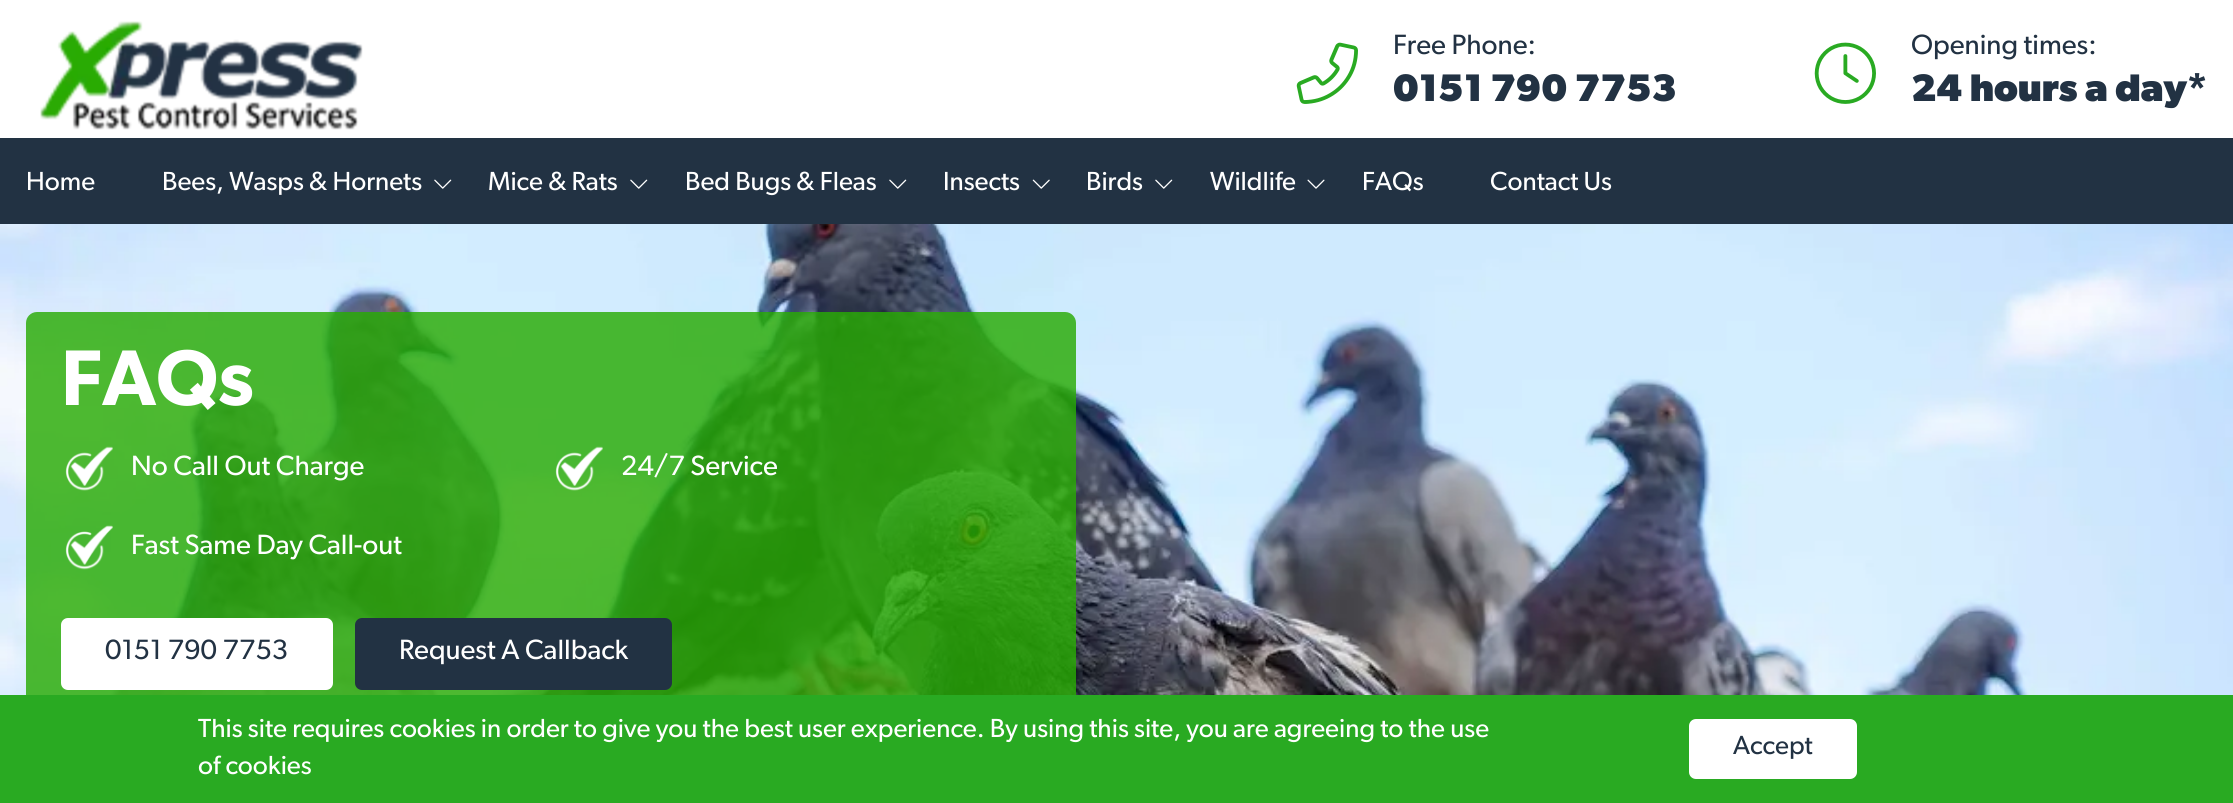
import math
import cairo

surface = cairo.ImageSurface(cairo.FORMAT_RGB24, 2233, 803)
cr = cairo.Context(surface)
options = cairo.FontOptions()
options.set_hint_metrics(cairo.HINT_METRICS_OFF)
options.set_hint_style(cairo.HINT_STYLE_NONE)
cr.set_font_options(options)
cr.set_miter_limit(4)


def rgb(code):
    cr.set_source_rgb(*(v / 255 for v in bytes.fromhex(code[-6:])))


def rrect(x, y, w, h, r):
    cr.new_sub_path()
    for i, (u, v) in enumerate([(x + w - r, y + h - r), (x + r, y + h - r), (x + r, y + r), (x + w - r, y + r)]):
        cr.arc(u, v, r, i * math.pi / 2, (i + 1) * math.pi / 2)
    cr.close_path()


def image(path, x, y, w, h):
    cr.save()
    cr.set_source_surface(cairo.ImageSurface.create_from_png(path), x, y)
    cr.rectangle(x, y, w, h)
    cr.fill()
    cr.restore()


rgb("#ffffff")
cr.paint()
image("img/1.png", 40, 21, 323, 109)
image("img/2.png", 1296, 42, 62, 62)
image("img/3.png", 1814, 42, 62, 62)
rgb("#223243")
cr.rectangle(0, 138, 2233, 86)
cr.fill()
image("img/4.png", 434, 179, 18, 10)
image("img/4.png", 630, 179, 18, 10)
image("img/4.png", 889, 179, 18, 10)
image("img/5.png", 1032, 179, 18, 10)
image("img/4.png", 1155, 179, 18, 10)
image("img/6.png", 1307, 179, 18, 10)
image("img/7.png", 0, 224, 2233, 471)
cr.set_source_rgba(0.161, 0.667, 0.016, 0.82)
rrect(26, 312, 1050, 413, 11)
cr.fill()
image("img/8.png", 65, 446, 48, 45)
image("img/9.png", 555, 446, 48, 45)
image("img/10.png", 65, 525, 48, 45)
rgb("#ffffff")
rrect(61, 618, 272, 72, 7)
cr.fill()
rgb("#223243")
rrect(355, 618, 317, 72, 7)
cr.fill()
rgb("#29aa22")
cr.rectangle(0, 695, 2233, 108)
cr.fill()
rgb("#ffffff")
rrect(1689, 719, 168, 60, 7)
cr.fill()
cr.select_font_face("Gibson")
cr.set_font_size(28)
rgb("#223243")
cr.move_to(1393, 54)
cr.show_text("Free Phone:")
cr.select_font_face("Gibson", cairo.FONT_SLANT_NORMAL, cairo.FONT_WEIGHT_BOLD)
cr.set_font_size(38.5)
cr.move_to(1393, 101)
cr.show_text("0151 790 7753")
cr.select_font_face("Gibson")
cr.set_font_size(28)
cr.move_to(1911, 54)
cr.show_text("Opening times:")
cr.select_font_face("Gibson", cairo.FONT_SLANT_NORMAL, cairo.FONT_WEIGHT_BOLD)
cr.set_font_size(38.5)
cr.move_to(1911, 101)
cr.show_text("24 hours a day*")
cr.select_font_face("Gibson")
cr.set_font_size(26.25)
rgb("#ffffff")
for x, y, s in [
    (26, 190, "Home"),
    (162, 190, "Bees, Wasps & Hornets"),
    (488, 190, "Mice & Rats"),
    (685, 190, "Bed Bugs & Fleas"),
    (943, 190, "Insects"),
    (1086, 190, "Birds"),
    (1210, 190, "Wildlife"),
    (1362, 190, "FAQs"),
    (1490, 190, "Contact Us"),
]:
    cr.move_to(x, y)
    cr.show_text(s)
cr.select_font_face("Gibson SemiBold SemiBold")
cr.set_font_size(79)
cr.move_to(61, 405)
cr.show_text("FAQs")
cr.select_font_face("Gibson")
cr.set_font_size(28)
for x, y, s in [
    (131, 475, "No Call Out Charge"),
    (621, 475, "24/7 Service"),
    (131, 554, "Fast Same Day Call-out"),
]:
    cr.move_to(x, y)
    cr.show_text(s)
rgb("#223243")
cr.move_to(105, 659)
cr.show_text("0151 790 7753")
rgb("#ffffff")
cr.move_to(399, 659)
cr.show_text("Request A Callback")
cr.set_font_size(26.25)
cr.move_to(198, 737)
cr.show_text("This site requires cookies in order to give you the best user experience. By using this site, you are agreeing to the use")
cr.move_to(198, 774)
cr.show_text("of cookies")
rgb("#223243")
cr.move_to(1733, 754)
cr.show_text("Accept")
surface.write_to_png("page.png")
